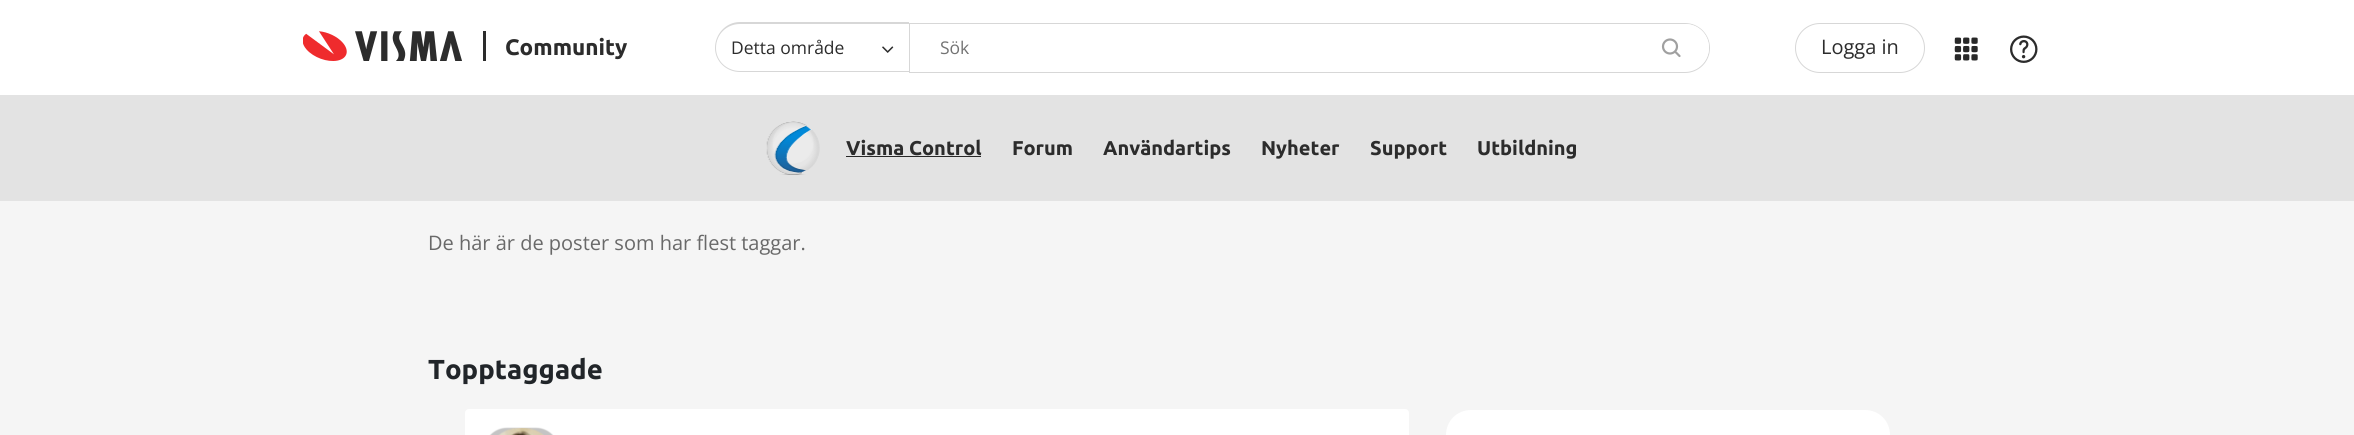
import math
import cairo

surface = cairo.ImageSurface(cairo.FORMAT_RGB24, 2354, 435)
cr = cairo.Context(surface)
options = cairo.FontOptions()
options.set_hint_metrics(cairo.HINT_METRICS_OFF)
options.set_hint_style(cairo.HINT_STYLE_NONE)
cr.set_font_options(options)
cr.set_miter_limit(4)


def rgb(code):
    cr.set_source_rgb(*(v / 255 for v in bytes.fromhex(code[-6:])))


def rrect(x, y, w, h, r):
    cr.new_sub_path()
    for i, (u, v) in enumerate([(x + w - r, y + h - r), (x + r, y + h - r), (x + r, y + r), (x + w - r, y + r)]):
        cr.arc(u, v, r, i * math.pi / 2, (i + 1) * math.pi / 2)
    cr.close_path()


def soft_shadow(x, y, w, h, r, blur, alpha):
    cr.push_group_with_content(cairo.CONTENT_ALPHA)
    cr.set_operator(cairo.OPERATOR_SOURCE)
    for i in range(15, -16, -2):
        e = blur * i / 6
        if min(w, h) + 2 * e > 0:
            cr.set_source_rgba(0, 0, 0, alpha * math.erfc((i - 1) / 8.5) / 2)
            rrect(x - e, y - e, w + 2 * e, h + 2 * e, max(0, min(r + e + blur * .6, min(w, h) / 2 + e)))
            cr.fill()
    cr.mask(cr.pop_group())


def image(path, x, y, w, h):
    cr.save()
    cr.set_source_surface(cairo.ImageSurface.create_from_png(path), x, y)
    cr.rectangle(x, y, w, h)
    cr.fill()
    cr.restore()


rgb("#f5f5f5")
cr.paint()
rgb("#ffffff")
cr.rectangle(0, 0, 2354, 95)
cr.fill()
image("img/1.png", 303, 31, 159, 30)
rgb("#2c2c2c")
cr.rectangle(483, 31, 3, 30)
cr.fill()
image("img/2.png", 882, 46, 12, 7)
rgb("#d7d7d7")
cr.set_fill_rule(cairo.FILL_RULE_EVEN_ODD)
cr.new_path()
cr.move_to(740, 22)
cr.line_to(909, 22)
cr.line_to(909, 72)
cr.line_to(740, 72)
cr.curve_to(726, 72, 715, 61, 715, 48)
cr.curve_to(715, 34, 726, 22, 740, 22)
cr.close_path()
cr.move_to(740, 24)
cr.line_to(909, 24)
cr.line_to(909, 71)
cr.line_to(740, 71)
cr.curve_to(727, 71, 716, 61, 716, 48)
cr.curve_to(716, 34, 727, 24, 740, 24)
cr.close_path()
cr.fill()
cr.new_path()
cr.move_to(909.5, 23.5)
cr.line_to(1685, 23.5)
cr.curve_to(1698.5, 23.5, 1709.5, 34.5, 1709.5, 48)
cr.curve_to(1709.5, 61.5, 1698.5, 72.5, 1685, 72.5)
cr.line_to(909.5, 72.5)
cr.close_path()
cr.set_line_width(1)
cr.stroke()
rgb("#ffffff")
cr.new_path()
cr.move_to(1634, 24)
cr.line_to(1685.5, 24)
cr.curve_to(1698.5, 24, 1709, 34.5, 1709, 47.5)
cr.curve_to(1709, 60.5, 1698.5, 71, 1685.5, 71)
cr.line_to(1634, 71)
cr.close_path()
cr.fill()
cr.new_path()
cr.move_to(1679.5, 56)
cr.line_to(1676, 52.5)
rgb("#a0a0a0")
cr.set_line_width(2.2)
cr.set_line_cap(cairo.LINE_CAP_ROUND)
cr.stroke()
cr.arc(1670, 46.5, 7, 0, 2 * math.pi)
cr.set_line_cap(cairo.LINE_CAP_BUTT)
cr.stroke()
rrect(1795.5, 23.5, 129, 49, 24.5)
rgb("#d7d7d7")
cr.set_line_width(1)
cr.stroke()
image("img/3.png", 1954, 37, 24, 24)
image("img/4.png", 2010, 35, 28, 28)
rgb("#e3e3e3")
cr.rectangle(0, 95, 2354, 106)
cr.fill()
image("img/5.png", 766, 121, 54, 54)
rgb("#282828")
cr.rectangle(846, 156, 135, 1)
cr.fill()
rgb("#ffffff")
rrect(465, 409, 944, 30, 4)
cr.fill()
rgb("#c4c4c4")
soft_shadow(484, 428, 75, 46, 37.5, 0.5, 1)
image("img/6.png", 498, 428, 46, 7)
rgb("#ffffff")
cr.new_path()
cr.move_to(1471, 410)
cr.line_to(1865, 410)
cr.curve_to(1879, 410, 1890, 421, 1890, 435)
cr.line_to(1890, 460)
cr.line_to(1446, 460)
cr.line_to(1446, 435)
cr.curve_to(1446, 421, 1457, 410, 1471, 410)
cr.close_path()
cr.fill()
cr.select_font_face("Ubuntu", cairo.FONT_SLANT_NORMAL, cairo.FONT_WEIGHT_BOLD)
cr.set_font_size(22.5)
rgb("#2c2c2c")
cr.move_to(505, 55)
cr.show_text("Community")
cr.select_font_face("Open Sans")
cr.set_font_size(17.5)
cr.move_to(731, 54)
cr.show_text("Detta område")
rgb("#737373")
cr.move_to(940, 54)
cr.show_text("Sök")
cr.set_font_size(20)
rgb("#2c2c2c")
cr.move_to(1821, 54)
cr.show_text("Logga in")
cr.select_font_face("Ubuntu", cairo.FONT_SLANT_NORMAL, cairo.FONT_WEIGHT_BOLD)
for x, y, s in [
    (846, 155, "Visma Control"),
    (1012, 155, "Forum"),
    (1103, 155, "Användartips"),
    (1261, 155, "Nyheter"),
    (1370, 155, "Support"),
    (1477, 155, "Utbildning"),
]:
    cr.move_to(x, y)
    cr.show_text(s)
cr.select_font_face("Open Sans")
rgb("#696969")
cr.move_to(428, 250)
cr.show_text("De här är de poster som har flest taggar.")
cr.select_font_face("Ubuntu", cairo.FONT_SLANT_NORMAL, cairo.FONT_WEIGHT_BOLD)
cr.set_font_size(27.5)
rgb("#212529")
cr.move_to(428, 379)
cr.show_text("Topptaggade")
surface.write_to_png("page.png")
